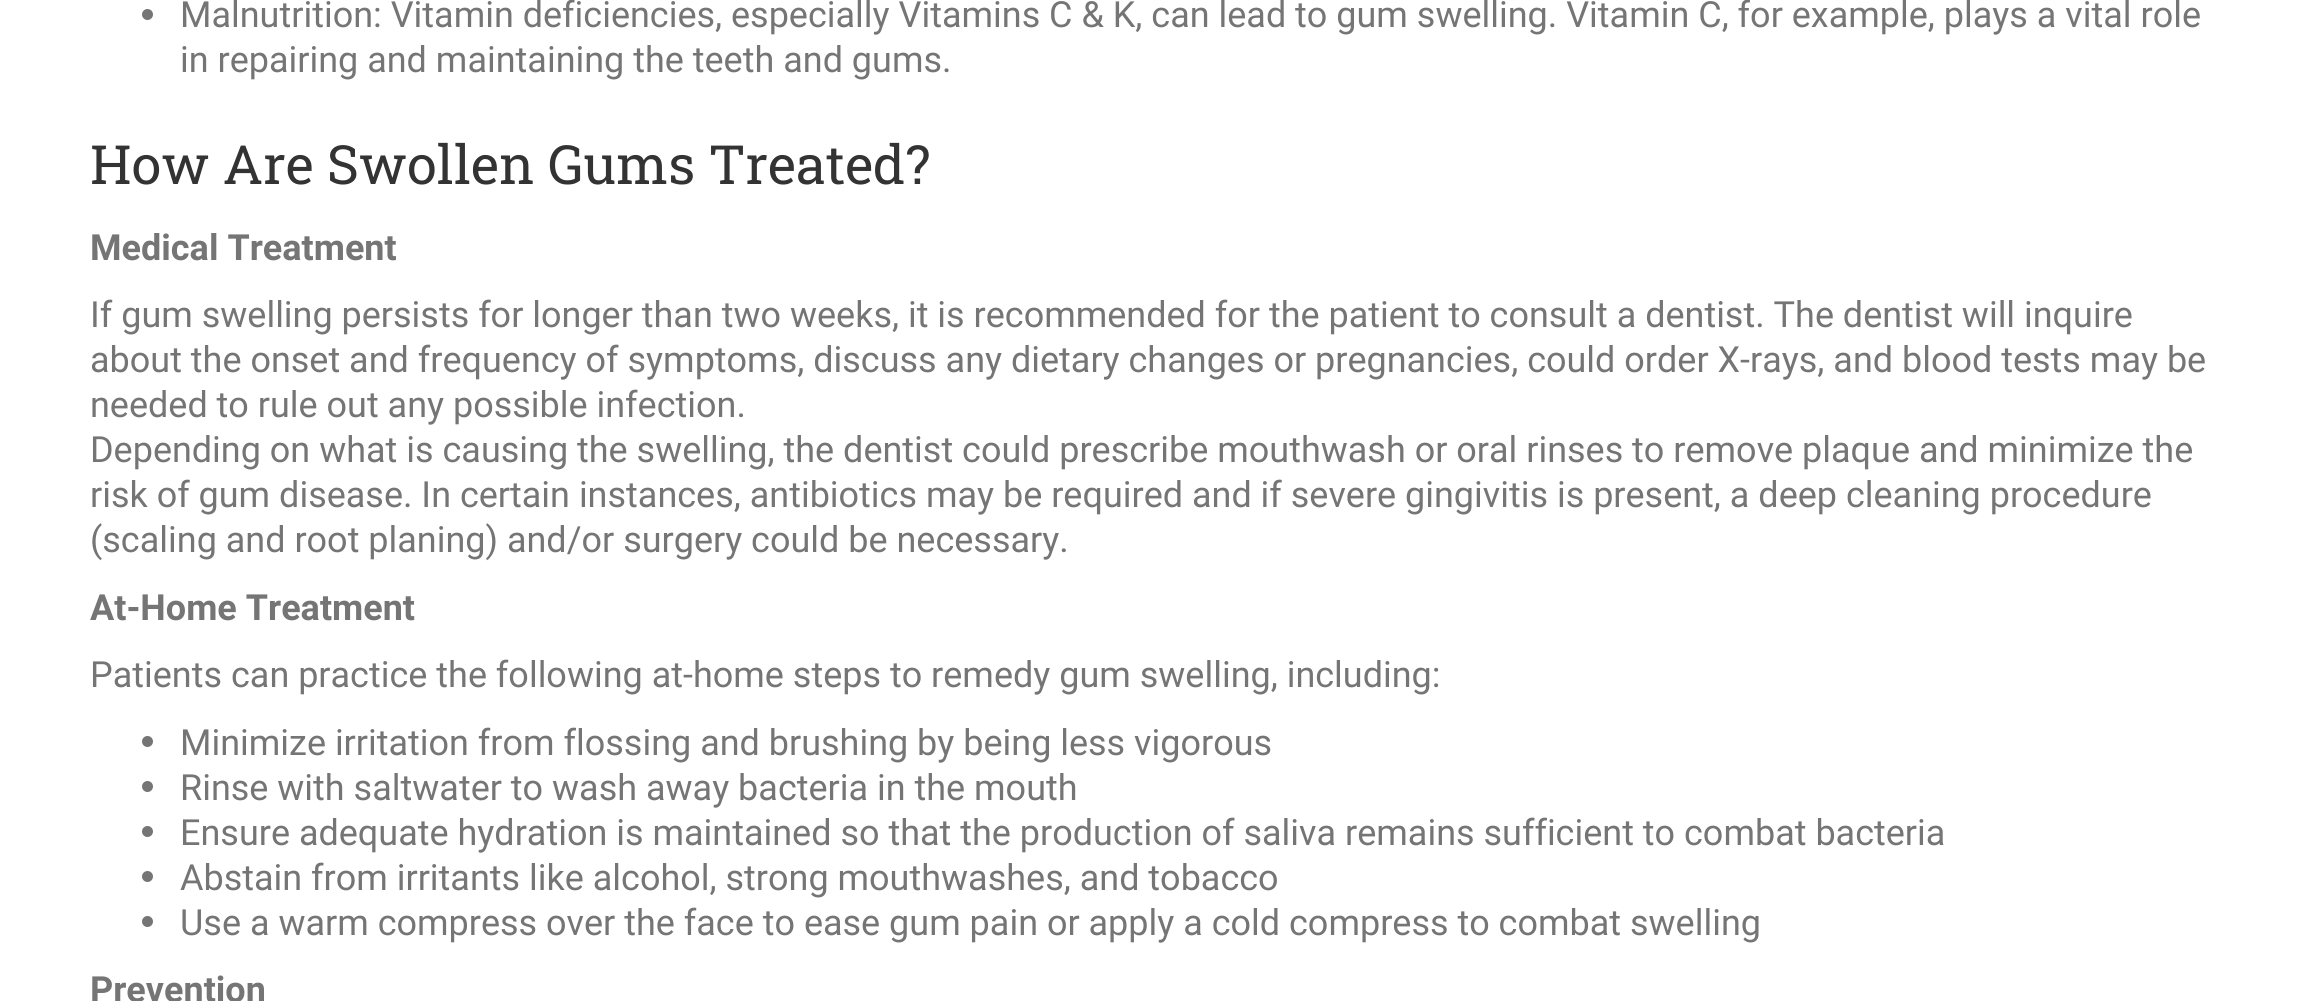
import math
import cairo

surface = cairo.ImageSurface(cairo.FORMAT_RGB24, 2307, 1001)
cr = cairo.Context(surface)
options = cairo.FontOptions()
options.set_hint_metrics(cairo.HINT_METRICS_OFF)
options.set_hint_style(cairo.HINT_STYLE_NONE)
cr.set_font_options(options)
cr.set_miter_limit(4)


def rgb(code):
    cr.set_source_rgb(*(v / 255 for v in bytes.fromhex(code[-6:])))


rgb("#ffffff")
cr.paint()
rgb("#757575")
cr.arc(147.5, 14.5, 5.5, 0, 2 * math.pi)
cr.fill()
cr.arc(147.5, 741.5, 5.5, 0, 2 * math.pi)
cr.fill()
cr.arc(147.5, 786.5, 5.5, 0, 2 * math.pi)
cr.fill()
cr.arc(147.5, 831.5, 5.5, 0, 2 * math.pi)
cr.fill()
cr.arc(147.5, 876.5, 5.5, 0, 2 * math.pi)
cr.fill()
cr.arc(147.5, 921.5, 5.5, 0, 2 * math.pi)
cr.fill()
cr.select_font_face("Roboto")
cr.set_font_size(36)
cr.move_to(180, 27)
cr.show_text("Malnutrition: Vitamin deficiencies, especially Vitamins C & K, can lead to gum swelling. Vitamin C, for example, plays a vital role")
cr.move_to(180, 72)
cr.show_text("in repairing and maintaining the teeth and gums.")
cr.select_font_face("Roboto Slab")
cr.set_font_size(54)
rgb("#333333")
cr.move_to(90, 184)
cr.show_text("How Are Swollen Gums Treated?")
cr.select_font_face("Roboto", cairo.FONT_SLANT_NORMAL, cairo.FONT_WEIGHT_BOLD)
cr.set_font_size(36)
rgb("#757575")
cr.move_to(90, 260)
cr.show_text("Medical Treatment")
cr.select_font_face("Roboto")
for x, y, s in [
    (90, 327, "If gum swelling persists for longer than two weeks, it is recommended for the patient to consult a dentist. The dentist will inquire"),
    (90, 372, "about the onset and frequency of symptoms, discuss any dietary changes or pregnancies, could order X-rays, and blood tests may be"),
    (90, 417, "needed to rule out any possible infection."),
    (90, 462, "Depending on what is causing the swelling, the dentist could prescribe mouthwash or oral rinses to remove plaque and minimize the"),
    (90, 507, "risk of gum disease. In certain instances, antibiotics may be required and if severe gingivitis is present, a deep cleaning procedure"),
    (90, 552, "(scaling and root planing) and/or surgery could be necessary."),
]:
    cr.move_to(x, y)
    cr.show_text(s)
cr.select_font_face("Roboto", cairo.FONT_SLANT_NORMAL, cairo.FONT_WEIGHT_BOLD)
cr.move_to(90, 620)
cr.show_text("At-Home Treatment")
cr.select_font_face("Roboto")
for x, y, s in [
    (90, 687, "Patients can practice the following at-home steps to remedy gum swelling, including:"),
    (180, 755, "Minimize irritation from flossing and brushing by being less vigorous"),
    (180, 800, "Rinse with saltwater to wash away bacteria in the mouth"),
    (180, 845, "Ensure adequate hydration is maintained so that the production of saliva remains sufficient to combat bacteria"),
    (180, 890, "Abstain from irritants like alcohol, strong mouthwashes, and tobacco"),
    (180, 935, "Use a warm compress over the face to ease gum pain or apply a cold compress to combat swelling"),
]:
    cr.move_to(x, y)
    cr.show_text(s)
cr.select_font_face("Roboto", cairo.FONT_SLANT_NORMAL, cairo.FONT_WEIGHT_BOLD)
cr.move_to(90, 1002)
cr.show_text("Prevention")
surface.write_to_png("page.png")
